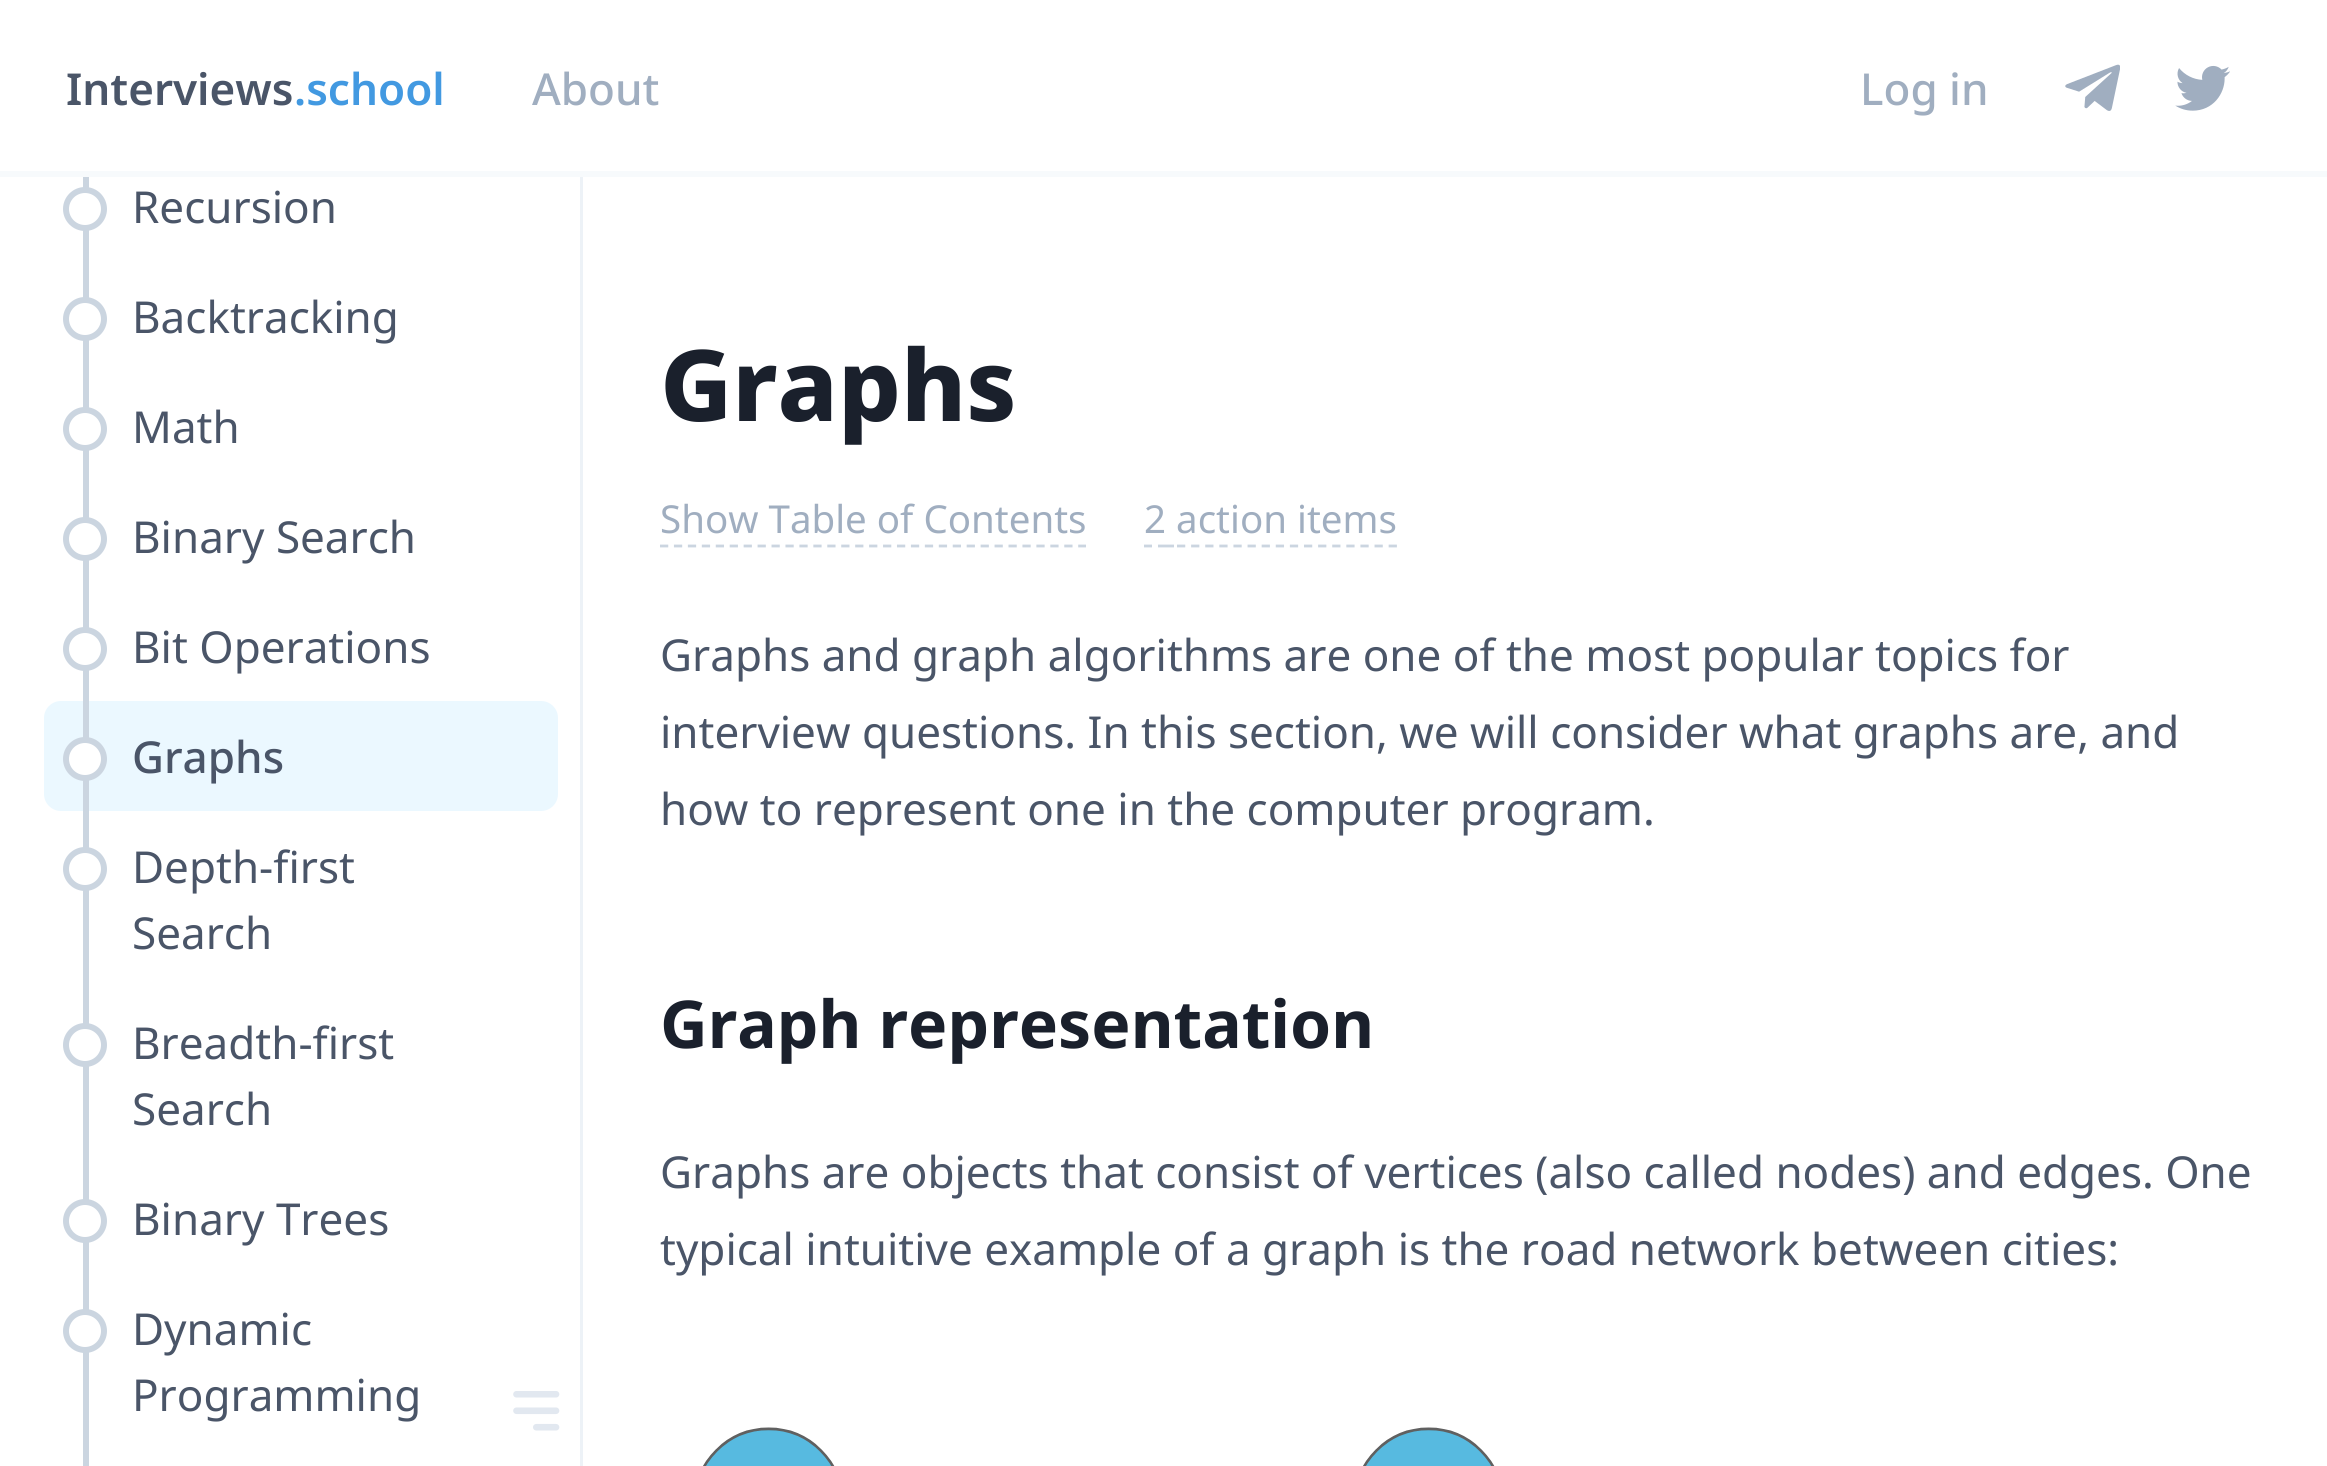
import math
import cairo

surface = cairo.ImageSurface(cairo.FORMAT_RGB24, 2327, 1466)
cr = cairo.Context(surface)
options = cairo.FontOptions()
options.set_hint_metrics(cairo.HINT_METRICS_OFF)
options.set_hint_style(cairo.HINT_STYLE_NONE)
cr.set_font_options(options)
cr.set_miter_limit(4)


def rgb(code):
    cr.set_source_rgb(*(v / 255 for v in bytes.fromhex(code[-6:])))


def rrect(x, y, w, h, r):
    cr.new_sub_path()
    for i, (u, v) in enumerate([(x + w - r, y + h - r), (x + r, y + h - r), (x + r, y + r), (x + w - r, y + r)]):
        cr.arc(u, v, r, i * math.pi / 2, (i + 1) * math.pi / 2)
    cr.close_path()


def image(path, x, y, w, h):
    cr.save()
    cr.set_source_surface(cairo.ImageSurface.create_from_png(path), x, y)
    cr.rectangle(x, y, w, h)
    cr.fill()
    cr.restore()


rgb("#ffffff")
cr.paint()
rgb("#ebf8ff")
rrect(44, 701, 514, 110, 17)
cr.fill()
rgb("#cbd5e0")
cr.rectangle(83, 173, 6, 1293)
cr.fill()
rgb("#f7fafc")
cr.rectangle(0, 171, 2327, 6)
cr.fill()
image("img/1.png", 2065, 64, 55, 47)
image("img/2.png", 2175, 65, 55, 46)
rgb("#edf2f7")
cr.rectangle(580, 177, 3, 1289)
cr.fill()
rgb("#ffffff")
cr.arc(85, 209, 19, 0, 2 * math.pi)
cr.fill_preserve()
rgb("#cbd5e0")
cr.set_line_width(6)
cr.stroke()
rgb("#ffffff")
cr.arc(85, 319, 19, 0, 2 * math.pi)
cr.fill_preserve()
rgb("#cbd5e0")
cr.stroke()
rgb("#ffffff")
cr.arc(85, 429, 19, 0, 2 * math.pi)
cr.fill_preserve()
rgb("#cbd5e0")
cr.stroke()
rgb("#ffffff")
cr.arc(85, 539, 19, 0, 2 * math.pi)
cr.fill_preserve()
rgb("#cbd5e0")
cr.stroke()
rgb("#ffffff")
cr.arc(85, 649, 19, 0, 2 * math.pi)
cr.fill_preserve()
rgb("#cbd5e0")
cr.stroke()
rgb("#ffffff")
cr.arc(85, 759, 19, 0, 2 * math.pi)
cr.fill_preserve()
rgb("#cbd5e0")
cr.stroke()
rgb("#ffffff")
cr.arc(85, 869, 19, 0, 2 * math.pi)
cr.fill_preserve()
rgb("#cbd5e0")
cr.stroke()
rgb("#ffffff")
cr.arc(85, 1045, 19, 0, 2 * math.pi)
cr.fill_preserve()
rgb("#cbd5e0")
cr.stroke()
rgb("#ffffff")
cr.arc(85, 1221, 19, 0, 2 * math.pi)
cr.fill_preserve()
rgb("#cbd5e0")
cr.stroke()
rgb("#ffffff")
cr.arc(85, 1331, 19, 0, 2 * math.pi)
cr.fill_preserve()
rgb("#cbd5e0")
cr.stroke()
image("img/3.png", 513, 1391, 47, 40)
cr.new_path()
cr.move_to(660, 546)
cr.line_to(1086, 546)
cr.set_line_width(2.8)
cr.set_dash([8.25, 5.69])
cr.stroke()
cr.new_path()
cr.move_to(1144, 546)
cr.line_to(1152, 546)
cr.move_to(1158, 546)
cr.line_to(1166, 546)
cr.move_to(1166, 546)
cr.line_to(1174, 546)
cr.set_dash([])
cr.stroke()
cr.new_path()
cr.move_to(1177, 546)
cr.line_to(1397, 546)
cr.set_dash([8.25, 5.86])
cr.stroke()
image("img/4.png", 703, 1427, 792, 39)
cr.select_font_face("Noto Sans SemiBold")
cr.set_font_size(44)
rgb("#4a5568")
cr.move_to(66, 105)
cr.show_text("Interviews")
rgb("#4299e1")
cr.move_to(294, 105)
cr.show_text(".school")
cr.select_font_face("Noto Sans Medium")
rgb("#a0aec0")
cr.move_to(532, 105)
cr.show_text("About")
cr.move_to(1860, 105)
cr.show_text("Log in")
cr.select_font_face("Noto Sans")
rgb("#4a5568")
for x, y, s in [
    (132, 223, "Recursion"),
    (132, 333, "Backtracking"),
    (132, 443, "Math"),
    (132, 553, "Binary Search"),
    (132, 663, "Bit Operations"),
]:
    cr.move_to(x, y)
    cr.show_text(s)
cr.select_font_face("Noto Sans Medium")
cr.move_to(132, 773)
cr.show_text("Graphs")
cr.select_font_face("Noto Sans")
for x, y, s in [
    (132, 883, "Depth-first"),
    (132, 949, "Search"),
    (132, 1059, "Breadth-first"),
    (132, 1125, "Search"),
    (132, 1235, "Binary Trees"),
    (132, 1345, "Dynamic"),
    (132, 1411, "Programming"),
]:
    cr.move_to(x, y)
    cr.show_text(s)
cr.select_font_face("Noto Sans ExtraBold")
cr.set_font_size(99)
rgb("#1a202c")
cr.move_to(660, 421)
cr.show_text("Graphs")
cr.select_font_face("Noto Sans")
cr.set_font_size(38.5)
rgb("#a0aec0")
cr.move_to(660, 533)
cr.show_text("Show Table of Contents")
cr.move_to(1144, 533)
cr.show_text("2 action items")
cr.set_font_size(44)
rgb("#4a5568")
for x, y, s in [
    (660, 671, "Graphs and graph algorithms are one of the most popular topics for"),
    (660, 748, "interview questions. In this section, we will consider what graphs are, and"),
    (660, 825, "how to represent one in the computer program."),
]:
    cr.move_to(x, y)
    cr.show_text(s)
cr.select_font_face("Noto Sans", cairo.FONT_SLANT_NORMAL, cairo.FONT_WEIGHT_BOLD)
cr.set_font_size(66)
rgb("#1a202c")
cr.move_to(660, 1048)
cr.show_text("Graph representation")
cr.select_font_face("Noto Sans")
cr.set_font_size(44)
rgb("#4a5568")
cr.move_to(660, 1188)
cr.show_text("Graphs are objects that consist of vertices (also called nodes) and edges. One")
cr.move_to(660, 1265)
cr.show_text("typical intuitive example of a graph is the road network between cities:")
surface.write_to_png("page.png")
